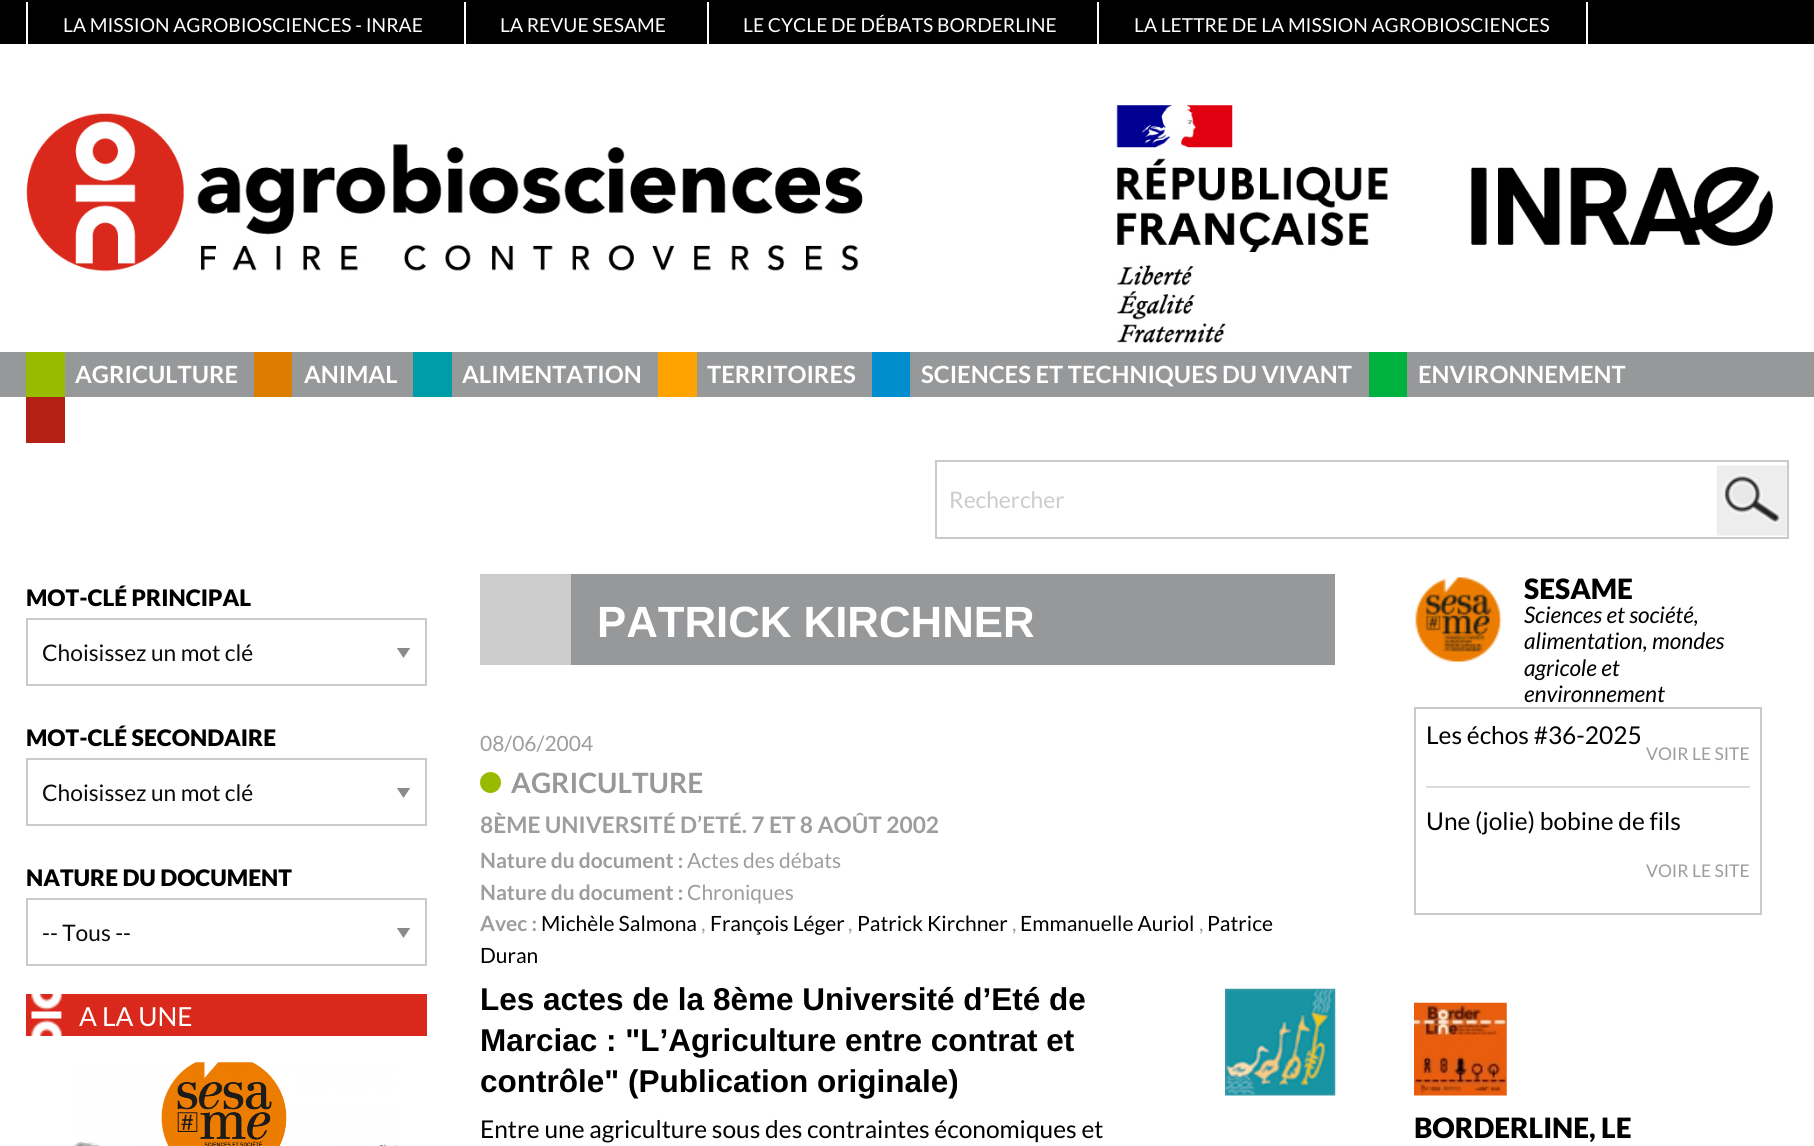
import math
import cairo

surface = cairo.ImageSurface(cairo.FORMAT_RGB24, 1814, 1146)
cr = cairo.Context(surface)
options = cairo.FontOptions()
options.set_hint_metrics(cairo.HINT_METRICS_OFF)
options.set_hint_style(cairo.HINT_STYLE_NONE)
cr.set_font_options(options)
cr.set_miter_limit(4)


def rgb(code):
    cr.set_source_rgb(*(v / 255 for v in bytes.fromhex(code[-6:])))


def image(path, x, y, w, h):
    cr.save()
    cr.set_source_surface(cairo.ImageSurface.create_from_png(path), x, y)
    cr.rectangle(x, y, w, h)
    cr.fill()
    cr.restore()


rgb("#ffffff")
cr.paint()
for x, y, w, h, color in [
    (0, 0, 1814, 44, "#000000"),
    (26, 2, 2, 44, "#ffffff"),
    (464, 2, 2, 44, "#ffffff"),
    (707, 2, 2, 44, "#ffffff"),
    (1586, 2, 2, 44, "#ffffff"),
    (1097, 2, 2, 44, "#ffffff"),
]:
    rgb(color)
    cr.rectangle(x, y, w, h)
    cr.fill()
image("img/1.png", 26, 113, 837, 159)
image("img/2.png", 1116, 105, 657, 238)
for x, y, w, h, color in [
    (0, 352, 1814, 45, "#979899"),
    (26, 352, 39, 45, "#98bb00"),
    (254, 352, 38, 45, "#dc7c01"),
    (413, 352, 39, 45, "#009da9"),
    (658, 352, 39, 45, "#ffa300"),
    (872, 352, 38, 45, "#008ecf"),
    (1369, 352, 38, 45, "#00b13f"),
    (26, 397, 39, 46, "#b32114"),
]:
    rgb(color)
    cr.rectangle(x, y, w, h)
    cr.fill()
image("img/3.png", 1716, 465, 71, 71)
cr.rectangle(936, 461, 852, 77)
rgb("#cacaca")
cr.stroke()
cr.save()
cr.rectangle(396, 648, 15, 10)
cr.clip()
rgb("#8a8a8a")
cr.new_path()
cr.move_to(396.5, 647.5)
cr.line_to(410.5, 647.5)
cr.line_to(403.5, 658)
cr.close_path()
cr.fill()
cr.restore()
cr.rectangle(27, 619, 399, 66)
cr.stroke()
cr.save()
cr.rectangle(396, 788, 15, 10)
cr.clip()
rgb("#8a8a8a")
cr.new_path()
cr.move_to(396.5, 787.5)
cr.line_to(410.5, 787.5)
cr.line_to(403.5, 798)
cr.close_path()
cr.fill()
cr.restore()
cr.rectangle(27, 759, 399, 66)
cr.stroke()
cr.save()
cr.rectangle(396, 928, 15, 10)
cr.clip()
rgb("#8a8a8a")
cr.new_path()
cr.move_to(396.5, 927.5)
cr.line_to(410.5, 927.5)
cr.line_to(403.5, 938)
cr.close_path()
cr.fill()
cr.restore()
cr.rectangle(27, 899, 399, 66)
cr.stroke()
rgb("#da291c")
cr.rectangle(26, 994, 401, 42)
cr.fill()
image("img/4.png", 31, 994, 33, 42)
image("img/5.png", 71, 1062, 327, 84)
rgb("#979899")
cr.rectangle(571, 574, 764, 91)
cr.fill()
rgb("#cccccc")
cr.rectangle(480, 574, 91, 91)
cr.fill()
rgb("#98bb00")
cr.arc(490.5, 782.5, 10.5, 0, 2 * math.pi)
cr.fill()
image("img/6.png", 1225, 988, 111, 108)
image("img/7.png", 1415, 576, 87, 86)
cr.rectangle(1415, 708, 346, 206)
rgb("#c9c9c9")
cr.stroke()
rgb("#dedede")
cr.rectangle(1426, 786, 324, 2)
cr.fill()
image("img/8.png", 1414, 1002, 93, 94)
cr.select_font_face("Lato")
cr.set_font_size(19.25)
rgb("#ffffff")
for x, y, s in [
    (63, 32, "LA MISSION AGROBIOSCIENCES - INRAE"),
    (500, 32, "LA REVUE SESAME"),
    (743, 32, "LE CYCLE DE DÉBATS BORDERLINE"),
    (1134, 32, "LA LETTRE DE LA MISSION AGROBIOSCIENCES"),
]:
    cr.move_to(x, y)
    cr.show_text(s)
cr.select_font_face("Lato", cairo.FONT_SLANT_NORMAL, cairo.FONT_WEIGHT_BOLD)
cr.set_font_size(23.75)
for x, y, s in [
    (75, 383, "AGRICULTURE"),
    (304, 383, "ANIMAL"),
    (462, 383, "ALIMENTATION"),
    (707, 383, "TERRITOIRES"),
    (921, 383, "SCIENCES ET TECHNIQUES DU VIVANT"),
    (1418, 383, "ENVIRONNEMENT"),
]:
    cr.move_to(x, y)
    cr.show_text(s)
cr.select_font_face("Lato")
cr.set_font_size(22.75)
rgb("#cccccc")
cr.move_to(949, 508)
cr.show_text("Rechercher")
cr.select_font_face("Lato Black")
rgb("#000000")
cr.move_to(26, 606)
cr.show_text("MOT-CLÉ PRINCIPAL")
cr.select_font_face("Lato")
rgb("#0a0a0a")
cr.move_to(42, 661)
cr.show_text("Choisissez un mot clé")
cr.select_font_face("Lato Black")
rgb("#000000")
cr.move_to(26, 746)
cr.show_text("MOT-CLÉ SECONDAIRE")
cr.select_font_face("Lato")
rgb("#0a0a0a")
cr.move_to(42, 801)
cr.show_text("Choisissez un mot clé")
cr.select_font_face("Lato Black")
rgb("#000000")
cr.move_to(26, 886)
cr.show_text("NATURE DU DOCUMENT")
cr.select_font_face("Lato")
rgb("#0a0a0a")
cr.move_to(42, 941)
cr.show_text("-- Tous --")
cr.set_font_size(26.25)
rgb("#ffffff")
cr.move_to(79, 1026)
cr.show_text("A LA UNE")
cr.select_font_face("Liberation Sans", cairo.FONT_SLANT_NORMAL, cairo.FONT_WEIGHT_BOLD)
cr.set_font_size(43.75)
cr.move_to(597, 637)
cr.show_text("PATRICK KIRCHNER")
cr.select_font_face("Lato")
cr.set_font_size(21)
rgb("#9d9d9c")
cr.move_to(480, 751)
cr.show_text("08/06/2004")
cr.select_font_face("Lato", cairo.FONT_SLANT_NORMAL, cairo.FONT_WEIGHT_BOLD)
cr.set_font_size(28)
rgb("#979899")
cr.move_to(511, 793)
cr.show_text("AGRICULTURE")
cr.set_font_size(22.75)
rgb("#9d9d9c")
cr.move_to(480, 833)
cr.show_text("8ÈME UNIVERSITÉ D’ETÉ. 7 ET 8 AOÛT 2002")
cr.set_font_size(21)
cr.move_to(480, 868)
cr.show_text("Nature du document :")
cr.select_font_face("Lato")
cr.move_to(687, 868)
cr.show_text("Actes des débats")
cr.select_font_face("Lato", cairo.FONT_SLANT_NORMAL, cairo.FONT_WEIGHT_BOLD)
cr.move_to(480, 900)
cr.show_text("Nature du document :")
cr.select_font_face("Lato")
cr.move_to(687, 900)
cr.show_text("Chroniques")
cr.select_font_face("Lato", cairo.FONT_SLANT_NORMAL, cairo.FONT_WEIGHT_BOLD)
cr.move_to(480, 931)
cr.show_text("Avec :")
cr.select_font_face("Lato")
rgb("#000000")
cr.move_to(541, 931)
cr.show_text("Michèle Salmona")
rgb("#9d9d9c")
cr.move_to(701, 931)
cr.show_text(",")
rgb("#000000")
cr.move_to(710, 931)
cr.show_text("François Léger")
rgb("#9d9d9c")
cr.move_to(848, 931)
cr.show_text(",")
rgb("#000000")
cr.move_to(857, 931)
cr.show_text("Patrick Kirchner")
rgb("#9d9d9c")
cr.move_to(1012, 931)
cr.show_text(",")
rgb("#000000")
cr.move_to(1020, 931)
cr.show_text("Emmanuelle Auriol")
rgb("#9d9d9c")
cr.move_to(1199, 931)
cr.show_text(",")
rgb("#000000")
cr.move_to(1207, 931)
cr.show_text("Patrice")
cr.move_to(480, 963)
cr.show_text("Duran")
cr.select_font_face("Liberation Sans", cairo.FONT_SLANT_NORMAL, cairo.FONT_WEIGHT_BOLD)
cr.set_font_size(31.5)
for x, y, s in [
    (480, 1010, "Les actes de la 8ème Université d’Eté de"),
    (480, 1051, "Marciac : \"L’Agriculture entre contrat et"),
    (480, 1092, "contrôle\" (Publication originale)"),
]:
    cr.move_to(x, y)
    cr.show_text(s)
cr.select_font_face("Lato")
cr.set_font_size(24.5)
cr.move_to(480, 1138)
cr.show_text("Entre une agriculture sous des contraintes économiques et")
cr.select_font_face("Lato Black")
cr.set_font_size(28)
cr.move_to(1524, 599)
cr.show_text("SESAME")
cr.select_font_face("Lato", cairo.FONT_SLANT_ITALIC)
cr.set_font_size(22.75)
for x, y, s in [
    (1524, 623, "Sciences et société,"),
    (1524, 649, "alimentation, mondes"),
    (1524, 676, "agricole et"),
    (1524, 702, "environnement"),
]:
    cr.move_to(x, y)
    cr.show_text(s)
cr.select_font_face("Lato")
cr.set_font_size(24.5)
cr.move_to(1426, 744)
cr.show_text("Les échos #36-2025")
cr.set_font_size(17.5)
rgb("#9d9d9c")
cr.move_to(1646, 760)
cr.show_text("VOIR LE SITE")
cr.set_font_size(24.5)
rgb("#000000")
cr.move_to(1426, 830)
cr.show_text("Une (jolie) bobine de fils")
cr.set_font_size(17.5)
rgb("#9d9d9c")
cr.move_to(1646, 877)
cr.show_text("VOIR LE SITE")
cr.select_font_face("Lato Black")
cr.set_font_size(28)
rgb("#000000")
cr.move_to(1414, 1138)
cr.show_text("BORDERLINE, LE")
surface.write_to_png("page.png")
